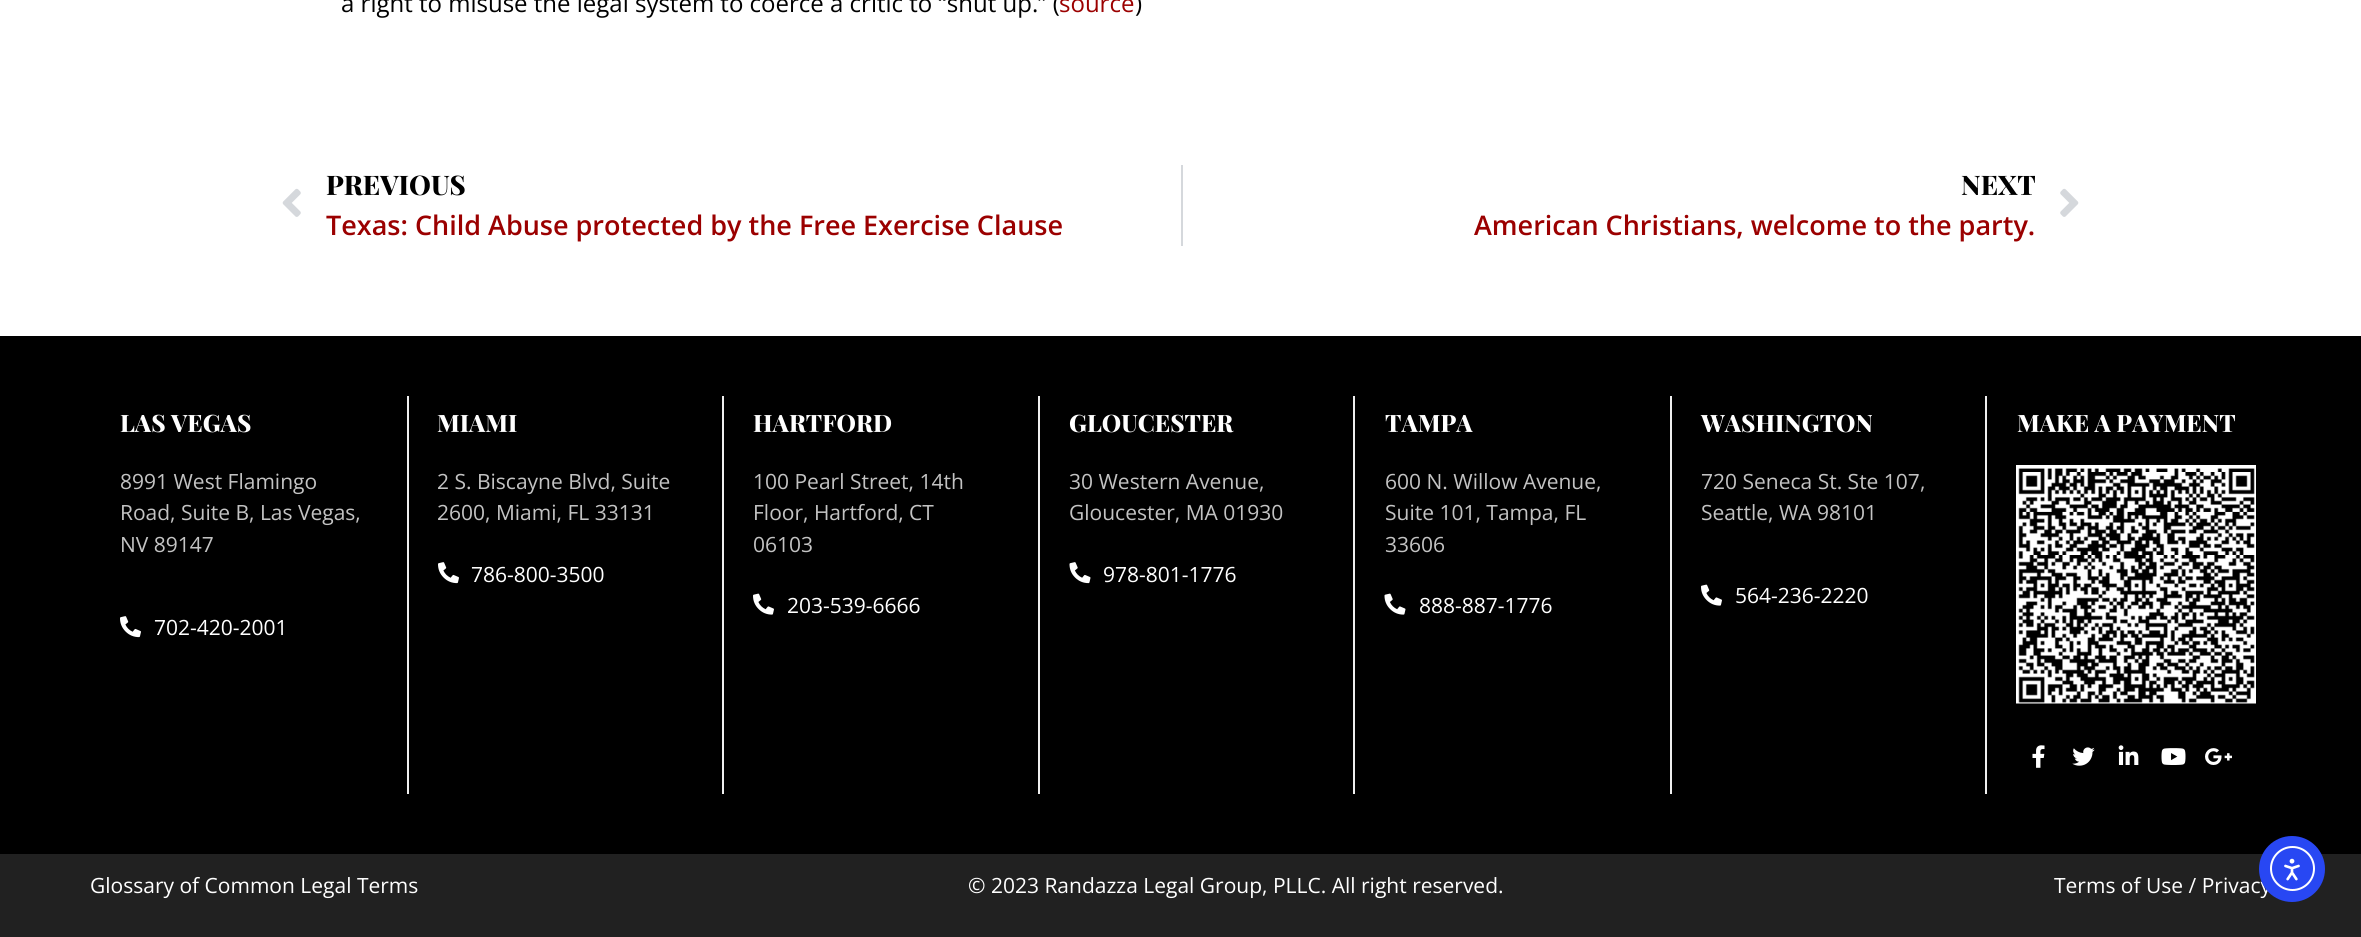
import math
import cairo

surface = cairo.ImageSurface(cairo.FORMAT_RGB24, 2361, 937)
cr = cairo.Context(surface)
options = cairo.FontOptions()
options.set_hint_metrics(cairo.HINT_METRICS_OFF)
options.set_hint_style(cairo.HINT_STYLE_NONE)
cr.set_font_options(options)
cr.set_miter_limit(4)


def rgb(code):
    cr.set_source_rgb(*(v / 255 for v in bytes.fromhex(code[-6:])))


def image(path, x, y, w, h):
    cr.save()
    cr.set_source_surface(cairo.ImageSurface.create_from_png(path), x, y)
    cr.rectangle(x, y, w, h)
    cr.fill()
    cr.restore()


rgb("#ffffff")
cr.paint()
image("img/1.png", 282, 188, 19, 29)
rgb("#d5d8dc")
cr.rectangle(1181, 165, 2, 81)
cr.fill()
image("img/2.png", 2060, 188, 19, 29)
rgb("#000000")
cr.rectangle(0, 336, 2361, 518)
cr.fill()
image("img/3.png", 120, 616, 21, 22)
rgb("#efefef")
cr.rectangle(407, 396, 2, 398)
cr.fill()
image("img/3.png", 438, 562, 21, 22)
cr.rectangle(722, 396, 2, 398)
cr.fill()
image("img/4.png", 753, 593, 21, 22)
cr.rectangle(1038, 396, 2, 398)
cr.fill()
image("img/5.png", 1069, 562, 22, 22)
cr.rectangle(1353, 396, 2, 398)
cr.fill()
image("img/6.png", 1384, 593, 22, 22)
cr.rectangle(1670, 396, 2, 398)
cr.fill()
image("img/4.png", 1701, 584, 21, 22)
cr.rectangle(1985, 396, 2, 398)
cr.fill()
image("img/7.png", 2016, 465, 240, 239)
image("img/8.png", 2032, 745, 13, 23)
image("img/9.png", 2072, 747, 23, 19)
image("img/10.png", 2118, 745, 21, 20)
image("img/11.png", 2161, 748, 25, 17)
image("img/12.png", 2205, 748, 27, 17)
rgb("#212121")
cr.rectangle(0, 854, 2361, 83)
cr.fill()
cr.select_font_face("Open Sans")
cr.set_font_size(24)
rgb("#000000")
cr.move_to(341, 12)
cr.show_text("a right to misuse the legal system to coerce a critic to “shut up.” (")
rgb("#9b0000")
cr.move_to(1059, 12)
cr.show_text("source")
rgb("#000000")
cr.move_to(1135, 12)
cr.show_text(")")
cr.select_font_face("Playfair Display ExtraBold")
cr.set_font_size(27)
cr.move_to(326, 195)
cr.show_text("PREVIOUS")
cr.select_font_face("Open Sans SemiBold")
rgb("#9b0000")
cr.move_to(326, 235)
cr.show_text("Texas: Child Abuse protected by the Free Exercise Clause")
cr.select_font_face("Playfair Display ExtraBold")
rgb("#000000")
cr.move_to(1961, 195)
cr.show_text("NEXT")
cr.select_font_face("Open Sans SemiBold")
rgb("#9b0000")
cr.move_to(1474, 235)
cr.show_text("American Christians, welcome to the party.")
cr.select_font_face("Playfair Display ExtraBold")
cr.set_font_size(24)
rgb("#ffffff")
cr.move_to(120, 432)
cr.show_text("LAS VEGAS")
cr.select_font_face("Open Sans")
cr.set_font_size(21)
rgb("#c3c3c3")
for x, y, s in [
    (120, 489, "8991 West Flamingo"),
    (120, 520, "Road, Suite B, Las Vegas,"),
    (120, 552, "NV 89147"),
]:
    cr.move_to(x, y)
    cr.show_text(s)
rgb("#ffffff")
cr.move_to(154, 635)
cr.show_text("702-420-2001")
cr.select_font_face("Playfair Display ExtraBold")
cr.set_font_size(24)
cr.move_to(437, 432)
cr.show_text("MIAMI")
cr.select_font_face("Open Sans")
cr.set_font_size(21)
rgb("#c3c3c3")
cr.move_to(437, 489)
cr.show_text("2 S. Biscayne Blvd, Suite")
cr.move_to(437, 520)
cr.show_text("2600, Miami, FL 33131")
rgb("#ffffff")
cr.move_to(471, 582)
cr.show_text("786-800-3500")
cr.select_font_face("Playfair Display ExtraBold")
cr.set_font_size(24)
cr.move_to(753, 432)
cr.show_text("HARTFORD")
cr.select_font_face("Open Sans")
cr.set_font_size(21)
rgb("#c3c3c3")
for x, y, s in [
    (753, 489, "100 Pearl Street, 14th"),
    (753, 520, "Floor, Hartford, CT"),
    (753, 552, "06103"),
]:
    cr.move_to(x, y)
    cr.show_text(s)
rgb("#ffffff")
cr.move_to(787, 613)
cr.show_text("203-539-6666")
cr.select_font_face("Playfair Display ExtraBold")
cr.set_font_size(24)
cr.move_to(1069, 432)
cr.show_text("GLOUCESTER")
cr.select_font_face("Open Sans")
cr.set_font_size(21)
rgb("#c3c3c3")
cr.move_to(1069, 489)
cr.show_text("30 Western Avenue,")
cr.move_to(1069, 520)
cr.show_text("Gloucester, MA 01930")
rgb("#ffffff")
cr.move_to(1103, 582)
cr.show_text("978-801-1776")
cr.select_font_face("Playfair Display ExtraBold")
cr.set_font_size(24)
cr.move_to(1385, 432)
cr.show_text("TAMPA")
cr.select_font_face("Open Sans")
cr.set_font_size(21)
rgb("#c3c3c3")
for x, y, s in [
    (1385, 489, "600 N. Willow Avenue,"),
    (1385, 520, "Suite 101, Tampa, FL"),
    (1385, 552, "33606"),
]:
    cr.move_to(x, y)
    cr.show_text(s)
rgb("#ffffff")
cr.move_to(1419, 613)
cr.show_text("888-887-1776")
cr.select_font_face("Playfair Display ExtraBold")
cr.set_font_size(24)
cr.move_to(1701, 432)
cr.show_text("WASHINGTON")
cr.select_font_face("Open Sans")
cr.set_font_size(21)
rgb("#c3c3c3")
cr.move_to(1701, 489)
cr.show_text("720 Seneca St. Ste 107,")
cr.move_to(1701, 520)
cr.show_text("Seattle, WA 98101")
rgb("#ffffff")
cr.move_to(1735, 603)
cr.show_text("564-236-2220")
cr.select_font_face("Playfair Display ExtraBold")
cr.set_font_size(24)
cr.move_to(2017, 432)
cr.show_text("MAKE A PAYMENT")
cr.select_font_face("Open Sans")
cr.set_font_size(21)
for x, y, s in [
    (90, 893, "Glossary of Common Legal Terms"),
    (968, 893, "© 2023 Randazza Legal Group, PLLC. All right reserved."),
    (2054, 893, "Terms of Use / Privacy"),
]:
    cr.move_to(x, y)
    cr.show_text(s)
rgb("#2847f3")
cr.new_path()
cr.arc(2292, 869, 33, 0, 2 * math.pi)
cr.fill()
cr.arc(2292.5, 868.5, 21.5, 0, 2 * math.pi)
rgb("#ffffff")
cr.stroke()
image("img/13.png", 2284, 858, 16, 23)
surface.write_to_png("page.png")
